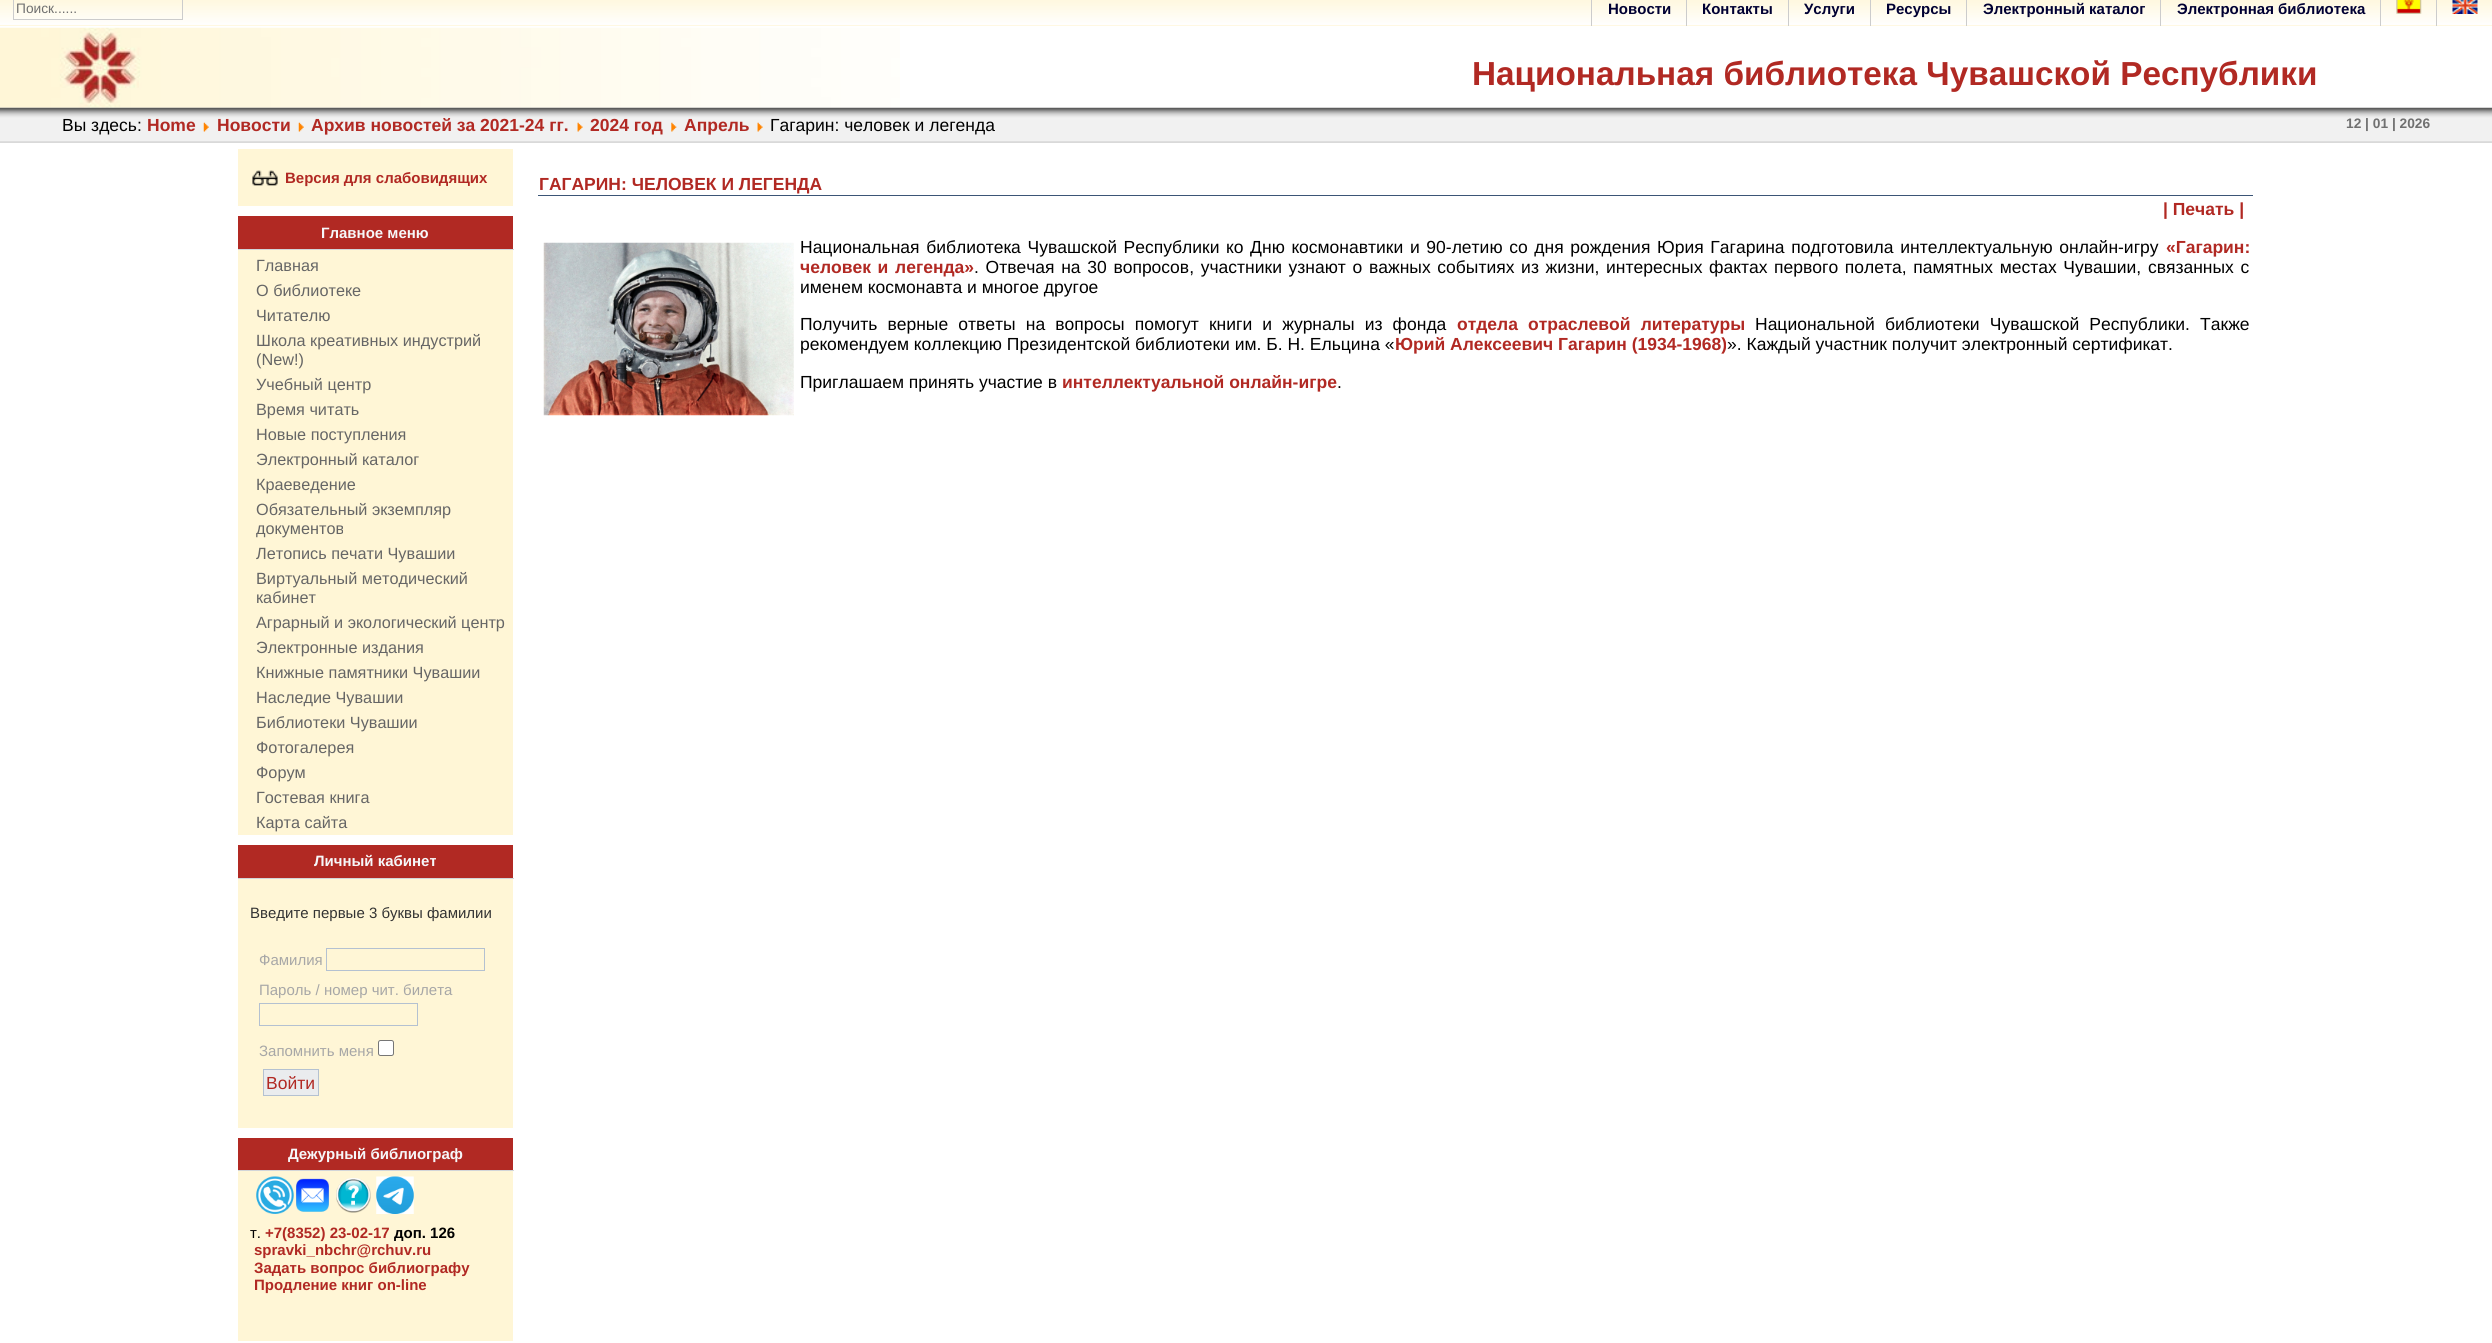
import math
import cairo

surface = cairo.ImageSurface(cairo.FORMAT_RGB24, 2492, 1343)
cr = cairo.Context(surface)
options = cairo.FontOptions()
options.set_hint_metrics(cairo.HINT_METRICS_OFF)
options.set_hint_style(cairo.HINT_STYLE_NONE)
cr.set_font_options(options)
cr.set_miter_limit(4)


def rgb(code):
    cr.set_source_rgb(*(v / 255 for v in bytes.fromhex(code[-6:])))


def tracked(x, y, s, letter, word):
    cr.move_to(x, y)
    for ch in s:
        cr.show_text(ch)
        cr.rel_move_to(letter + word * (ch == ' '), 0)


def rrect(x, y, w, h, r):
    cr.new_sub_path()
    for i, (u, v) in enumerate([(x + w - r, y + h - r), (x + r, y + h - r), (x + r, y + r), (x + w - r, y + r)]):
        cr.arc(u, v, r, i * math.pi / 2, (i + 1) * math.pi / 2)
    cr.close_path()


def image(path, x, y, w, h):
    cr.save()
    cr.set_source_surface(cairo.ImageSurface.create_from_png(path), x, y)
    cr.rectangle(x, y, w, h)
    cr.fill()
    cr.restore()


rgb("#ffffff")
cr.paint()
image("img/1.png", 0, 0, 2492, 26)
cr.rectangle(13.5, -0.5, 169, 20)
rgb("#cccccc")
cr.set_line_width(1)
cr.stroke()
for x, y, w, h, color in [
    (1591, 0, 1, 26, "#cccccc"),
    (1686, 0, 1, 26, "#cccccc"),
    (1788, 0, 1, 26, "#cccccc"),
    (1870, 0, 1, 26, "#cccccc"),
    (1966, 0, 1, 26, "#cccccc"),
    (2160, 0, 1, 26, "#cccccc"),
    (2380, 0, 1, 26, "#cccccc"),
]:
    rgb(color)
    cr.rectangle(x, y, w, h)
    cr.fill()
image("img/2.png", 2396, 0, 26, 14)
cr.rectangle(2436, 0, 1, 26)
cr.fill()
image("img/3.png", 2452, 0, 26, 14)
image("img/4.png", 0, 27, 900, 81)
image("img/5.png", 0, 107, 2492, 36)
image("img/6.png", 203, 122, 6, 10)
image("img/6.png", 298, 122, 6, 10)
image("img/7.png", 577, 122, 6, 10)
image("img/8.png", 671, 122, 6, 10)
image("img/7.png", 757, 122, 6, 10)
rgb("#fff6d6")
cr.rectangle(238, 149, 275, 57)
cr.fill()
image("img/9.png", 252, 170, 26, 16)
for x, y, w, h, color in [
    (238, 250, 275, 585, "#fff6d6"),
    (238, 216, 275, 33, "#b12923"),
    (238, 249, 276, 1, "#d2d5d8"),
    (238, 879, 275, 249, "#fff6d6"),
    (238, 845, 275, 33, "#b12923"),
    (238, 878, 276, 1, "#d2d5d8"),
]:
    rgb(color)
    cr.rectangle(x, y, w, h)
    cr.fill()
cr.rectangle(326.5, 948.5, 158, 22)
rgb("#b4c1d1")
cr.stroke()
cr.rectangle(259.5, 1003.5, 158, 22)
cr.stroke()
rgb("#ffffff")
rrect(378.5, 1040.5, 15, 15, 2)
cr.fill_preserve()
rgb("#767676")
cr.stroke()
rgb("#eaecee")
cr.rectangle(263.5, 1069.5, 55, 26)
cr.fill_preserve()
rgb("#b4c1d1")
cr.stroke()
for x, y, w, h, color in [
    (238, 1171, 275, 170, "#fff6d6"),
    (238, 1138, 275, 32, "#b12923"),
    (238, 1170, 276, 1, "#d2d5d8"),
]:
    rgb(color)
    cr.rectangle(x, y, w, h)
    cr.fill()
image("img/10.png", 256, 1176, 38, 38)
image("img/11.png", 296, 1178, 33, 34)
image("img/12.png", 336, 1178, 35, 35)
image("img/13.png", 376, 1176, 38, 38)
rgb("#3b5576")
cr.rectangle(538, 195, 1715, 1)
cr.fill()
image("img/14.png", 543, 242, 251, 174)
cr.select_font_face("Liberation Sans")
cr.set_font_size(13.75)
rgb("#707070")
cr.move_to(16, 13)
cr.show_text("Поиск......")
cr.select_font_face("Liberation Sans", cairo.FONT_SLANT_NORMAL, cairo.FONT_WEIGHT_BOLD)
cr.set_font_size(15)
rgb("#000033")
for x, y, s in [
    (1608, 14, "Новости"),
    (1702, 14, "Контакты"),
    (1804, 14, "Услуги"),
    (1886, 14, "Ресурсы"),
    (1983, 14, "Электронный каталог"),
    (2177, 14, "Электронная библиотека"),
]:
    cr.move_to(x, y)
    cr.show_text(s)
cr.set_font_size(33.3)
rgb("#b12923")
cr.move_to(1472, 85)
cr.show_text("Национальная библиотека Чувашской Республики")
cr.select_font_face("Liberation Sans")
cr.set_font_size(17.5)
rgb("#000000")
cr.move_to(62, 131)
cr.show_text("Вы здесь:")
cr.select_font_face("Liberation Sans", cairo.FONT_SLANT_NORMAL, cairo.FONT_WEIGHT_BOLD)
rgb("#b12923")
for x, y, s in [
    (147, 131, "Home"),
    (217, 131, "Нoвости"),
    (311, 131, "Архив новостей за 2021-24 гг."),
    (590, 131, "2024 год"),
    (684, 131, "Апрель"),
]:
    cr.move_to(x, y)
    cr.show_text(s)
cr.select_font_face("Liberation Sans")
rgb("#000000")
cr.move_to(770, 131)
cr.show_text("Гагарин: человек и легенда")
cr.select_font_face("Liberation Sans", cairo.FONT_SLANT_NORMAL, cairo.FONT_WEIGHT_BOLD)
cr.set_font_size(13.75)
rgb("#707070")
cr.move_to(2346, 128)
cr.show_text("12 | 01 | 2026")
cr.set_font_size(15)
rgb("#b12923")
cr.move_to(285, 183)
cr.show_text("Версия для слабовидящих")
rgb("#f6f7f9")
cr.move_to(321, 238)
cr.show_text("Главное меню")
cr.select_font_face("Liberation Sans")
cr.set_font_size(16.25)
rgb("#666666")
for x, y, s in [
    (256, 271, "Главная"),
    (256, 296, "О библиотеке"),
    (256, 321, "Читателю"),
    (256, 346, "Школа креативных индустрий"),
    (256, 365, "(New!)"),
    (256, 390, "Учебный центр"),
    (256, 415, "Время читать"),
    (256, 440, "Новые поступления"),
    (256, 465, "Электронный каталог"),
    (256, 490, "Краеведение"),
    (256, 515, "Обязательный экземпляр"),
    (256, 534, "документов"),
    (256, 559, "Летопись печати Чувашии"),
    (256, 584, "Виртуальный методический"),
    (256, 603, "кабинет"),
    (256, 628, "Аграрный и экологический центр"),
    (256, 653, "Электронные издания"),
    (256, 678, "Книжные памятники Чувашии"),
    (256, 703, "Наследие Чувашии"),
    (256, 728, "Библиотеки Чувашии"),
    (256, 753, "Фотогалерея"),
    (256, 778, "Форум"),
    (256, 803, "Гостевая книга"),
    (256, 828, "Карта сайта"),
]:
    cr.move_to(x, y)
    cr.show_text(s)
cr.select_font_face("Liberation Sans", cairo.FONT_SLANT_NORMAL, cairo.FONT_WEIGHT_BOLD)
cr.set_font_size(15)
rgb("#f6f7f9")
cr.move_to(314, 866)
cr.show_text("Личный кабинет")
cr.select_font_face("Liberation Sans")
rgb("#333333")
cr.move_to(250, 918)
cr.show_text("Введите первые 3 буквы фамилии")
rgb("#a7a7a7")
for x, y, s in [
    (259, 965, "Фамилия"),
    (259, 995, "Пароль / номер чит. билета"),
    (259, 1056, "Запомнить меня"),
]:
    cr.move_to(x, y)
    cr.show_text(s)
cr.set_font_size(17.5)
rgb("#b12923")
cr.move_to(266, 1089)
cr.show_text("Войти")
cr.select_font_face("Liberation Sans", cairo.FONT_SLANT_NORMAL, cairo.FONT_WEIGHT_BOLD)
cr.set_font_size(15)
rgb("#f6f7f9")
cr.move_to(288, 1159)
cr.show_text("Дежурный библиограф")
cr.select_font_face("Liberation Sans")
rgb("#000000")
cr.move_to(250, 1238)
cr.show_text("т.")
cr.select_font_face("Liberation Sans", cairo.FONT_SLANT_NORMAL, cairo.FONT_WEIGHT_BOLD)
rgb("#b12923")
cr.move_to(265, 1238)
cr.show_text("+7(8352) 23-02-17")
rgb("#000000")
cr.move_to(394, 1238)
cr.show_text("доп. 126")
rgb("#b12923")
for x, y, s in [
    (254, 1255, "spravki_nbchr@rchuv.ru"),
    (254, 1273, "Задать вопрос библиографу"),
    (254, 1290, "Продление книг on-line"),
]:
    cr.move_to(x, y)
    cr.show_text(s)
cr.set_font_size(17.5)
cr.move_to(539, 190)
cr.show_text("ГАГАРИН: ЧЕЛОВЕК И ЛЕГЕНДА")
cr.move_to(2163, 215)
cr.show_text("| Печать |")
cr.select_font_face("Liberation Sans")
rgb("#000000")
tracked(800, 253, "Национальная библиотека Чувашской Республики ко Дню космонавтики и 90-летию со дня рождения Юрия Гагарина подготовила интеллектуальную онлайн-игру", 0, 1.8)
cr.select_font_face("Liberation Sans", cairo.FONT_SLANT_NORMAL, cairo.FONT_WEIGHT_BOLD)
rgb("#b12923")
cr.move_to(2166, 253)
cr.show_text("«Гагарин:")
tracked(800, 273, "человек и легенда»", 0, 1.8)
cr.select_font_face("Liberation Sans")
rgb("#000000")
tracked(974, 273, ". Отвечая на 30 вопросов, участники узнают о важных событиях из жизни, интересных фактах первого полета, памятных местах Чувашии, связанных с", 0, 1.8)
cr.move_to(800, 293)
cr.show_text("именем космонавта и многое другое")
tracked(800, 330, "Получить верные ответы на вопросы помогут книги и журналы из фонда", 0, 5.25)
cr.select_font_face("Liberation Sans", cairo.FONT_SLANT_NORMAL, cairo.FONT_WEIGHT_BOLD)
rgb("#b12923")
tracked(1457, 330, "отдела отраслевой литературы", 0, 5.25)
cr.select_font_face("Liberation Sans")
rgb("#000000")
tracked(1755, 330, "Национальной библиотеки Чувашской Республики. Также", 0, 5.25)
cr.move_to(800, 350)
cr.show_text("рекомендуем коллекцию Президентской библиотеки им. Б. Н. Ельцина «")
cr.select_font_face("Liberation Sans", cairo.FONT_SLANT_NORMAL, cairo.FONT_WEIGHT_BOLD)
rgb("#b12923")
cr.move_to(1395, 350)
cr.show_text("Юрий Алексеевич Гагарин (1934-1968)")
cr.select_font_face("Liberation Sans")
rgb("#000000")
cr.move_to(1727, 350)
cr.show_text("». Каждый участник получит электронный сертификат.")
cr.move_to(800, 388)
cr.show_text("Приглашаем принять участие в")
cr.select_font_face("Liberation Sans", cairo.FONT_SLANT_NORMAL, cairo.FONT_WEIGHT_BOLD)
rgb("#b12923")
cr.move_to(1062, 388)
cr.show_text("интеллектуальной онлайн-игре")
cr.select_font_face("Liberation Sans")
rgb("#000000")
cr.move_to(1337, 388)
cr.show_text(".")
surface.write_to_png("page.png")
